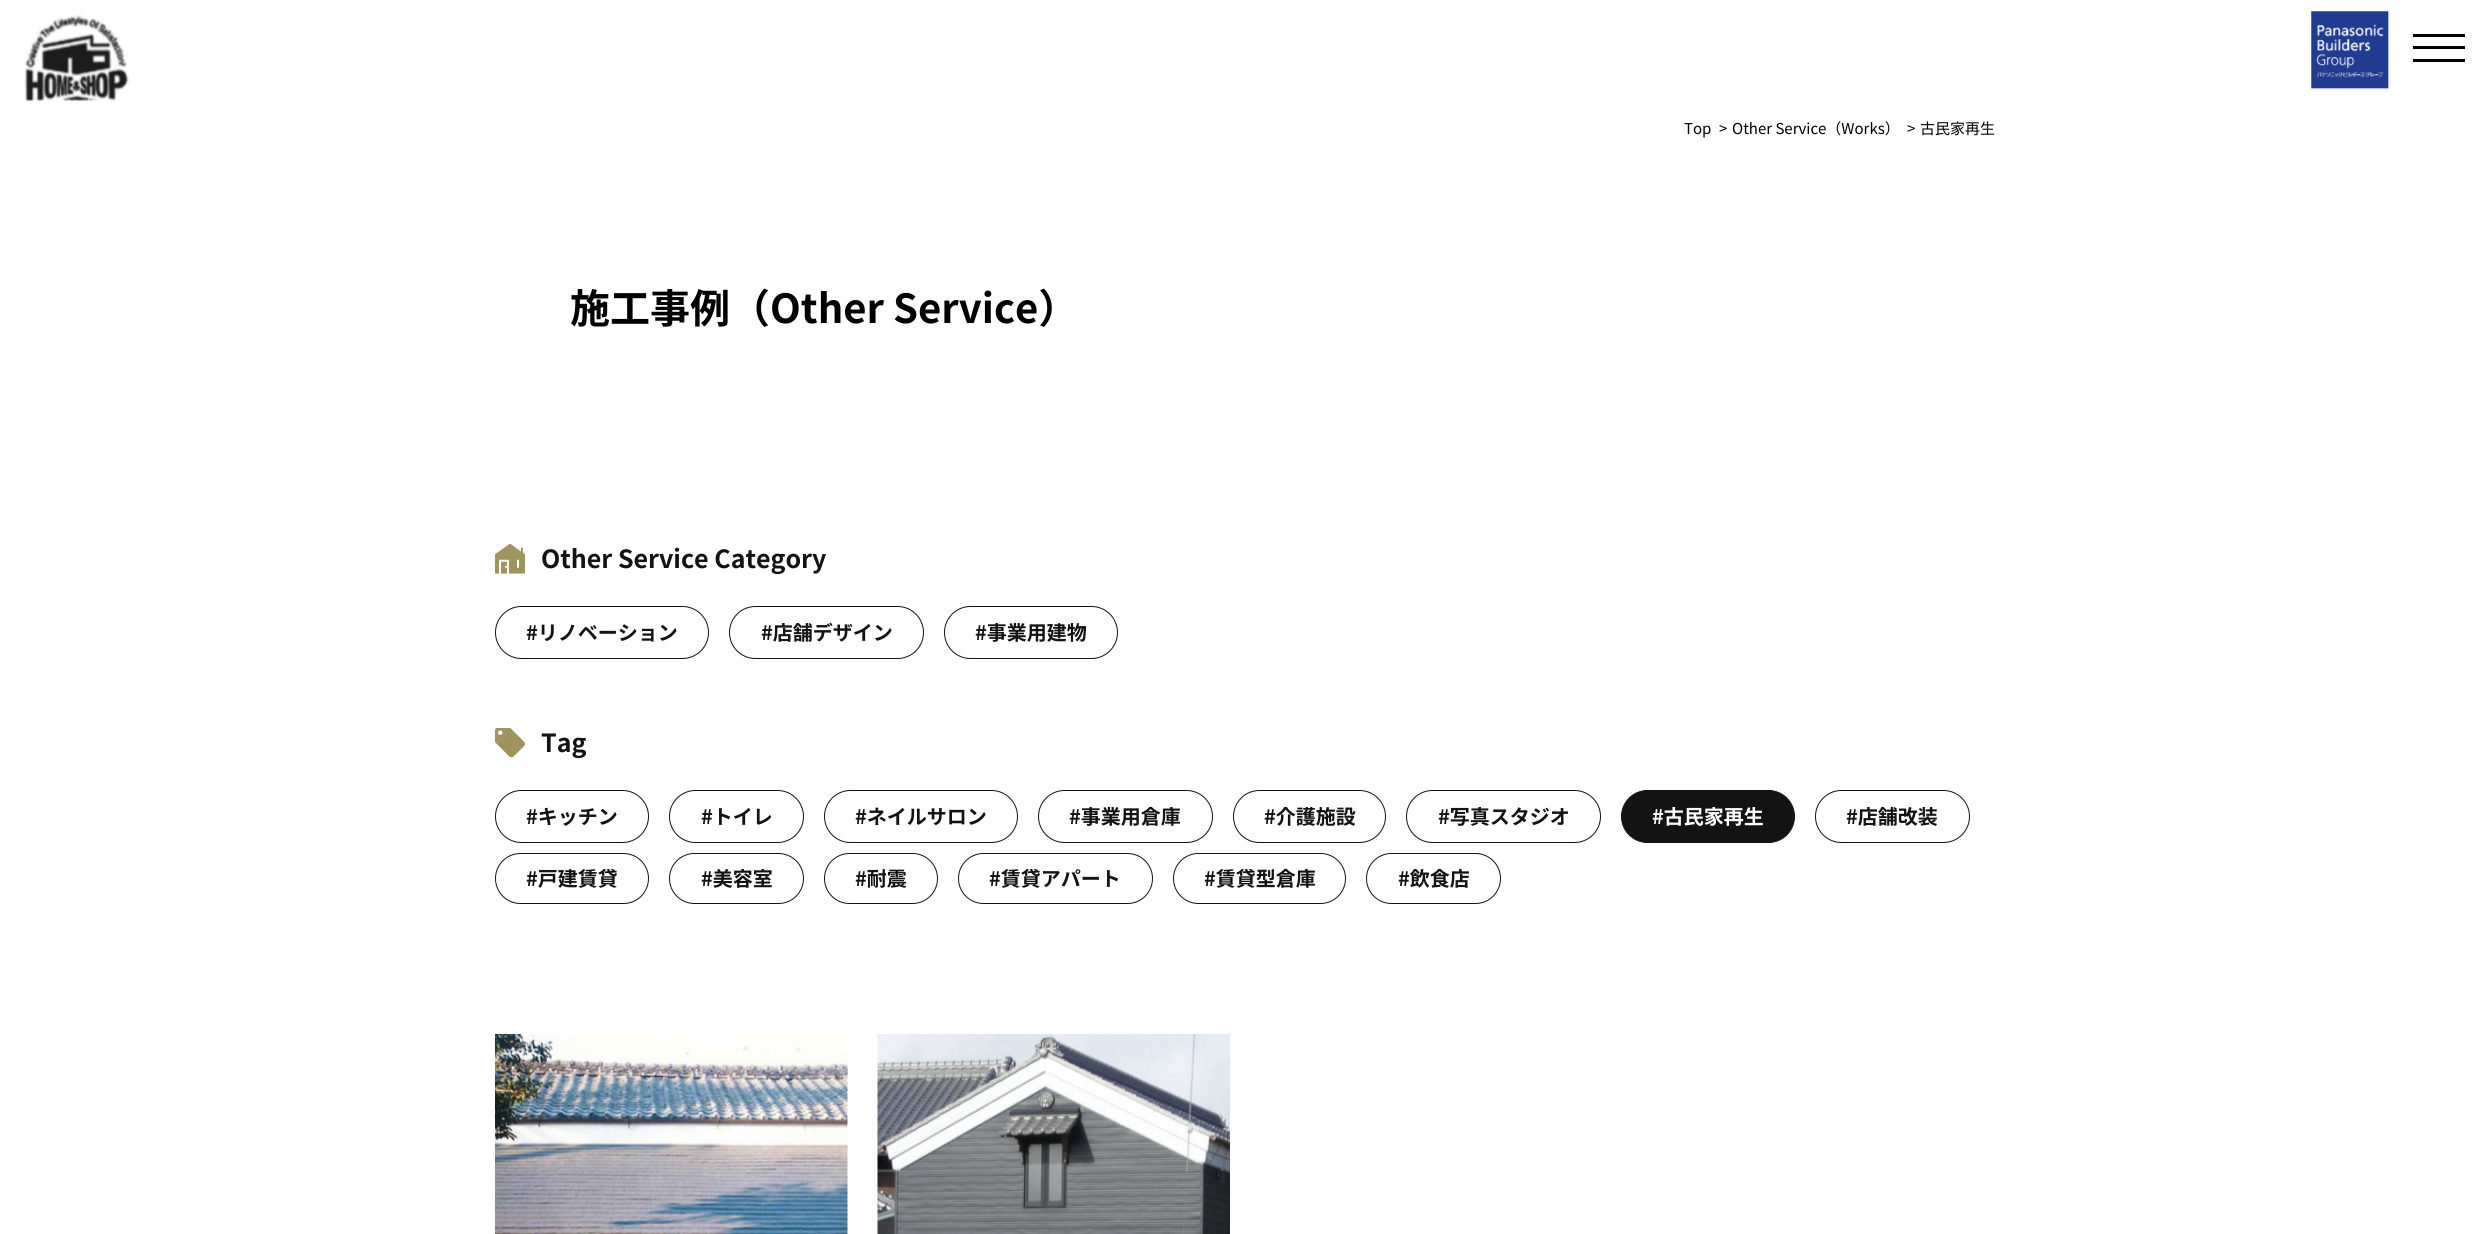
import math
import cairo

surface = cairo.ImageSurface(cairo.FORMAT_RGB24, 2489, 1234)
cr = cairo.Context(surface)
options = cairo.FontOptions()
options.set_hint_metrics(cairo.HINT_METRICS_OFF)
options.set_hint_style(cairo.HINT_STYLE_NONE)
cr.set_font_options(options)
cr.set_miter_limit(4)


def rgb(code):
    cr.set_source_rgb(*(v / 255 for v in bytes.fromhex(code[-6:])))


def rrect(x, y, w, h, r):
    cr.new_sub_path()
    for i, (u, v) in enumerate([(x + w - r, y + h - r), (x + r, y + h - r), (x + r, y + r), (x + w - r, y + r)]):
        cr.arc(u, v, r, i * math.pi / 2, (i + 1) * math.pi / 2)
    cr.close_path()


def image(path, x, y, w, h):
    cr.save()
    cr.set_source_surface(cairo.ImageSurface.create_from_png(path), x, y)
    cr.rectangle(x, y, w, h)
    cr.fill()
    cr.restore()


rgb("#ffffff")
cr.paint()
image("img/1.png", 24, 15, 105, 86)
image("img/2.png", 2311, 11, 79, 79)
for x, y, w, h, color in [
    (2413, 34, 52, 3, "#000000"),
    (2413, 46, 52, 3, "#000000"),
    (2413, 59, 52, 3, "#000000"),
]:
    rgb(color)
    cr.rectangle(x, y, w, h)
    cr.fill()
image("img/3.png", 495, 544, 30, 30)
rrect(495.5, 606.5, 213, 52, 26)
rgb("#131313")
cr.set_line_width(1)
cr.stroke()
rrect(729.5, 606.5, 194, 52, 26)
cr.stroke()
rrect(944.5, 606.5, 173, 52, 26)
cr.stroke()
image("img/4.png", 495, 728, 30, 30)
rrect(495.5, 790.5, 153, 52, 26)
cr.stroke()
rrect(669.5, 790.5, 134, 52, 26)
cr.stroke()
rrect(824.5, 790.5, 193, 52, 26)
cr.stroke()
rrect(1038.5, 790.5, 174, 52, 26)
cr.stroke()
rrect(1233.5, 790.5, 152, 52, 26)
cr.stroke()
rrect(1406.5, 790.5, 194, 52, 26)
cr.stroke()
rrect(1621.5, 790.5, 173, 52, 26)
cr.fill_preserve()
cr.stroke()
rrect(1815.5, 790.5, 154, 52, 26)
cr.stroke()
rrect(495.5, 853.5, 153, 50, 25)
cr.stroke()
rrect(669.5, 853.5, 134, 50, 25)
cr.stroke()
rrect(824.5, 853.5, 113, 50, 25)
cr.stroke()
rrect(958.5, 853.5, 194, 50, 25)
cr.stroke()
rrect(1173.5, 853.5, 172, 50, 25)
cr.stroke()
rrect(1366.5, 853.5, 134, 50, 25)
cr.stroke()
image("img/5.png", 495, 1034, 353, 200)
image("img/6.png", 877, 1034, 353, 200)
cr.select_font_face("Noto Sans JP")
cr.set_font_size(15)
rgb("#000000")
for x, y, s in [
    (1684, 134, "Top"),
    (1719, 134, ">"),
    (1732, 134, "Other Service（Works）"),
    (1907, 134, ">"),
    (1920, 134, "古民家再生"),
]:
    cr.move_to(x, y)
    cr.show_text(s)
cr.select_font_face("Noto Sans JP", cairo.FONT_SLANT_NORMAL, cairo.FONT_WEIGHT_BOLD)
cr.set_font_size(40)
cr.move_to(570, 323)
cr.show_text("施工事例（Other Service）")
cr.set_font_size(25)
rgb("#131313")
cr.move_to(541, 568)
cr.show_text("Other Service Category")
cr.set_font_size(20)
for x, y, s in [
    (526, 640, "#リノベーション"),
    (761, 640, "#店舗デザイン"),
    (975, 640, "#事業用建物"),
]:
    cr.move_to(x, y)
    cr.show_text(s)
cr.set_font_size(25)
cr.move_to(541, 752)
cr.show_text("Tag")
cr.set_font_size(20)
for x, y, s in [
    (526, 824, "#キッチン"),
    (701, 824, "#トイレ"),
    (855, 824, "#ネイルサロン"),
    (1069, 824, "#事業用倉庫"),
    (1264, 824, "#介護施設"),
    (1438, 824, "#写真スタジオ"),
]:
    cr.move_to(x, y)
    cr.show_text(s)
rgb("#ffffff")
cr.move_to(1652, 824)
cr.show_text("#古民家再生")
rgb("#131313")
for x, y, s in [
    (1846, 824, "#店舗改装"),
    (526, 886, "#戸建賃貸"),
    (701, 886, "#美容室"),
    (855, 886, "#耐震"),
    (989, 886, "#賃貸アパート"),
    (1204, 886, "#賃貸型倉庫"),
    (1398, 886, "#飲食店"),
]:
    cr.move_to(x, y)
    cr.show_text(s)
surface.write_to_png("page.png")
